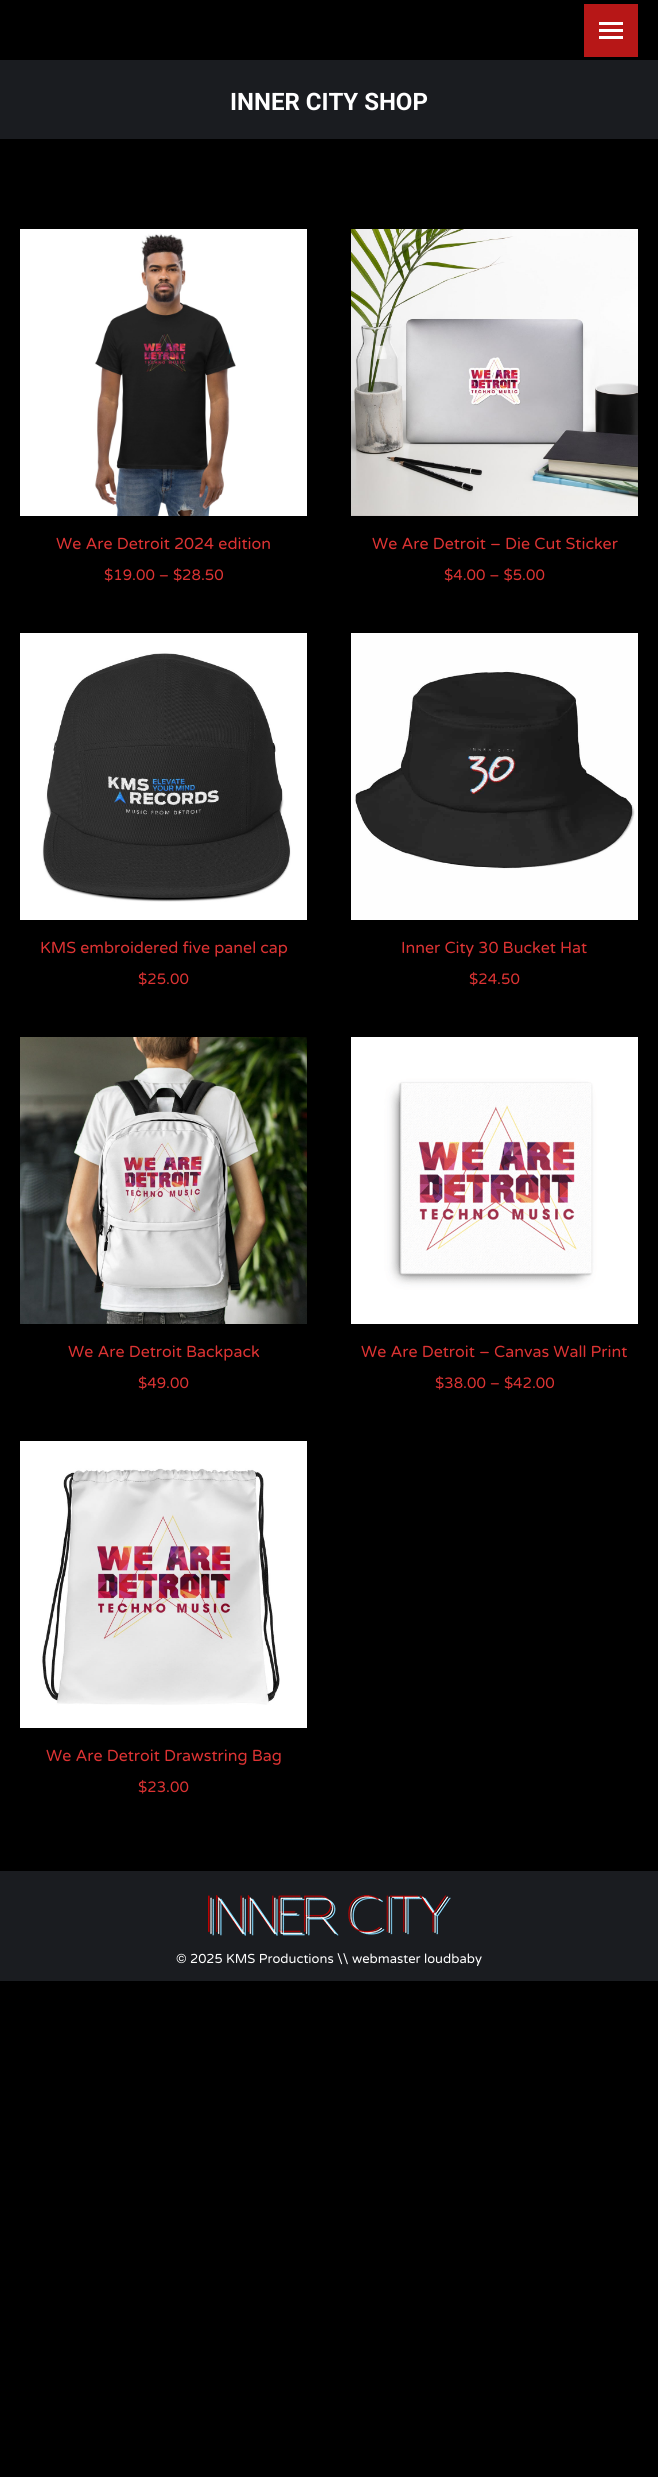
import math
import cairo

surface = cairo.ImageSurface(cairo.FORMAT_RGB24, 658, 2477)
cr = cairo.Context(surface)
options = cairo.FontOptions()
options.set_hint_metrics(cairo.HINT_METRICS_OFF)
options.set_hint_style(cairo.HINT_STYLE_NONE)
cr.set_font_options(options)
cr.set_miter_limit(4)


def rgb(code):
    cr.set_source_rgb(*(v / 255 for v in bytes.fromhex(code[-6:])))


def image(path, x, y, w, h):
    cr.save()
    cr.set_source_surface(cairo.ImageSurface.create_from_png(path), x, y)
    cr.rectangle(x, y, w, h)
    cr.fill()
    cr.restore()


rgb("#000000")
cr.paint()
for x, y, w, h, color in [
    (584, 4, 54, 53, "#b71717"),
    (599, 22, 24, 3, "#ffffff"),
    (599, 29, 24, 3, "#ffffff"),
    (599, 36, 24, 3, "#ffffff"),
    (0, 60, 658, 79, "#1a1c20"),
]:
    rgb(color)
    cr.rectangle(x, y, w, h)
    cr.fill()
image("img/1.png", 20, 229, 287, 287)
image("img/2.png", 351, 229, 287, 287)
image("img/3.png", 20, 633, 287, 287)
image("img/4.png", 351, 633, 287, 287)
image("img/5.png", 20, 1037, 287, 287)
image("img/6.png", 351, 1037, 287, 287)
image("img/7.png", 20, 1441, 287, 287)
cr.rectangle(0, 1871, 658, 110)
cr.fill()
image("img/8.png", 208, 1895, 243, 41)
cr.select_font_face("Roboto", cairo.FONT_SLANT_NORMAL, cairo.FONT_WEIGHT_BOLD)
cr.set_font_size(24)
rgb("#ffffff")
cr.move_to(230, 110)
cr.show_text("INNER CITY SHOP")
cr.select_font_face("Varela Round")
cr.set_font_size(16)
rgb("#dd3333")
cr.move_to(56, 549)
cr.show_text("We Are Detroit 2024 edition")
cr.set_font_size(15)
cr.move_to(104, 580)
cr.show_text("$19.00 – $28.50")
cr.set_font_size(16)
cr.move_to(372, 549)
cr.show_text("We Are Detroit – Die Cut Sticker")
cr.set_font_size(15)
cr.move_to(444, 580)
cr.show_text("$4.00 – $5.00")
cr.set_font_size(16)
cr.move_to(40, 953)
cr.show_text("KMS embroidered five panel cap")
cr.set_font_size(15)
cr.move_to(138, 984)
cr.show_text("$25.00")
cr.set_font_size(16)
cr.move_to(401, 953)
cr.show_text("Inner City 30 Bucket Hat")
cr.set_font_size(15)
cr.move_to(469, 984)
cr.show_text("$24.50")
cr.set_font_size(16)
cr.move_to(68, 1357)
cr.show_text("We Are Detroit Backpack")
cr.set_font_size(15)
cr.move_to(138, 1388)
cr.show_text("$49.00")
cr.set_font_size(16)
cr.move_to(361, 1357)
cr.show_text("We Are Detroit – Canvas Wall Print")
cr.set_font_size(15)
cr.move_to(435, 1388)
cr.show_text("$38.00 – $42.00")
cr.set_font_size(16)
cr.move_to(46, 1761)
cr.show_text("We Are Detroit Drawstring Bag")
cr.set_font_size(15)
cr.move_to(138, 1792)
cr.show_text("$23.00")
cr.set_font_size(13)
rgb("#ffffff")
cr.move_to(176, 1963)
cr.show_text("© 2025 KMS Productions \\\\ webmaster loudbaby")
surface.write_to_png("page.png")
